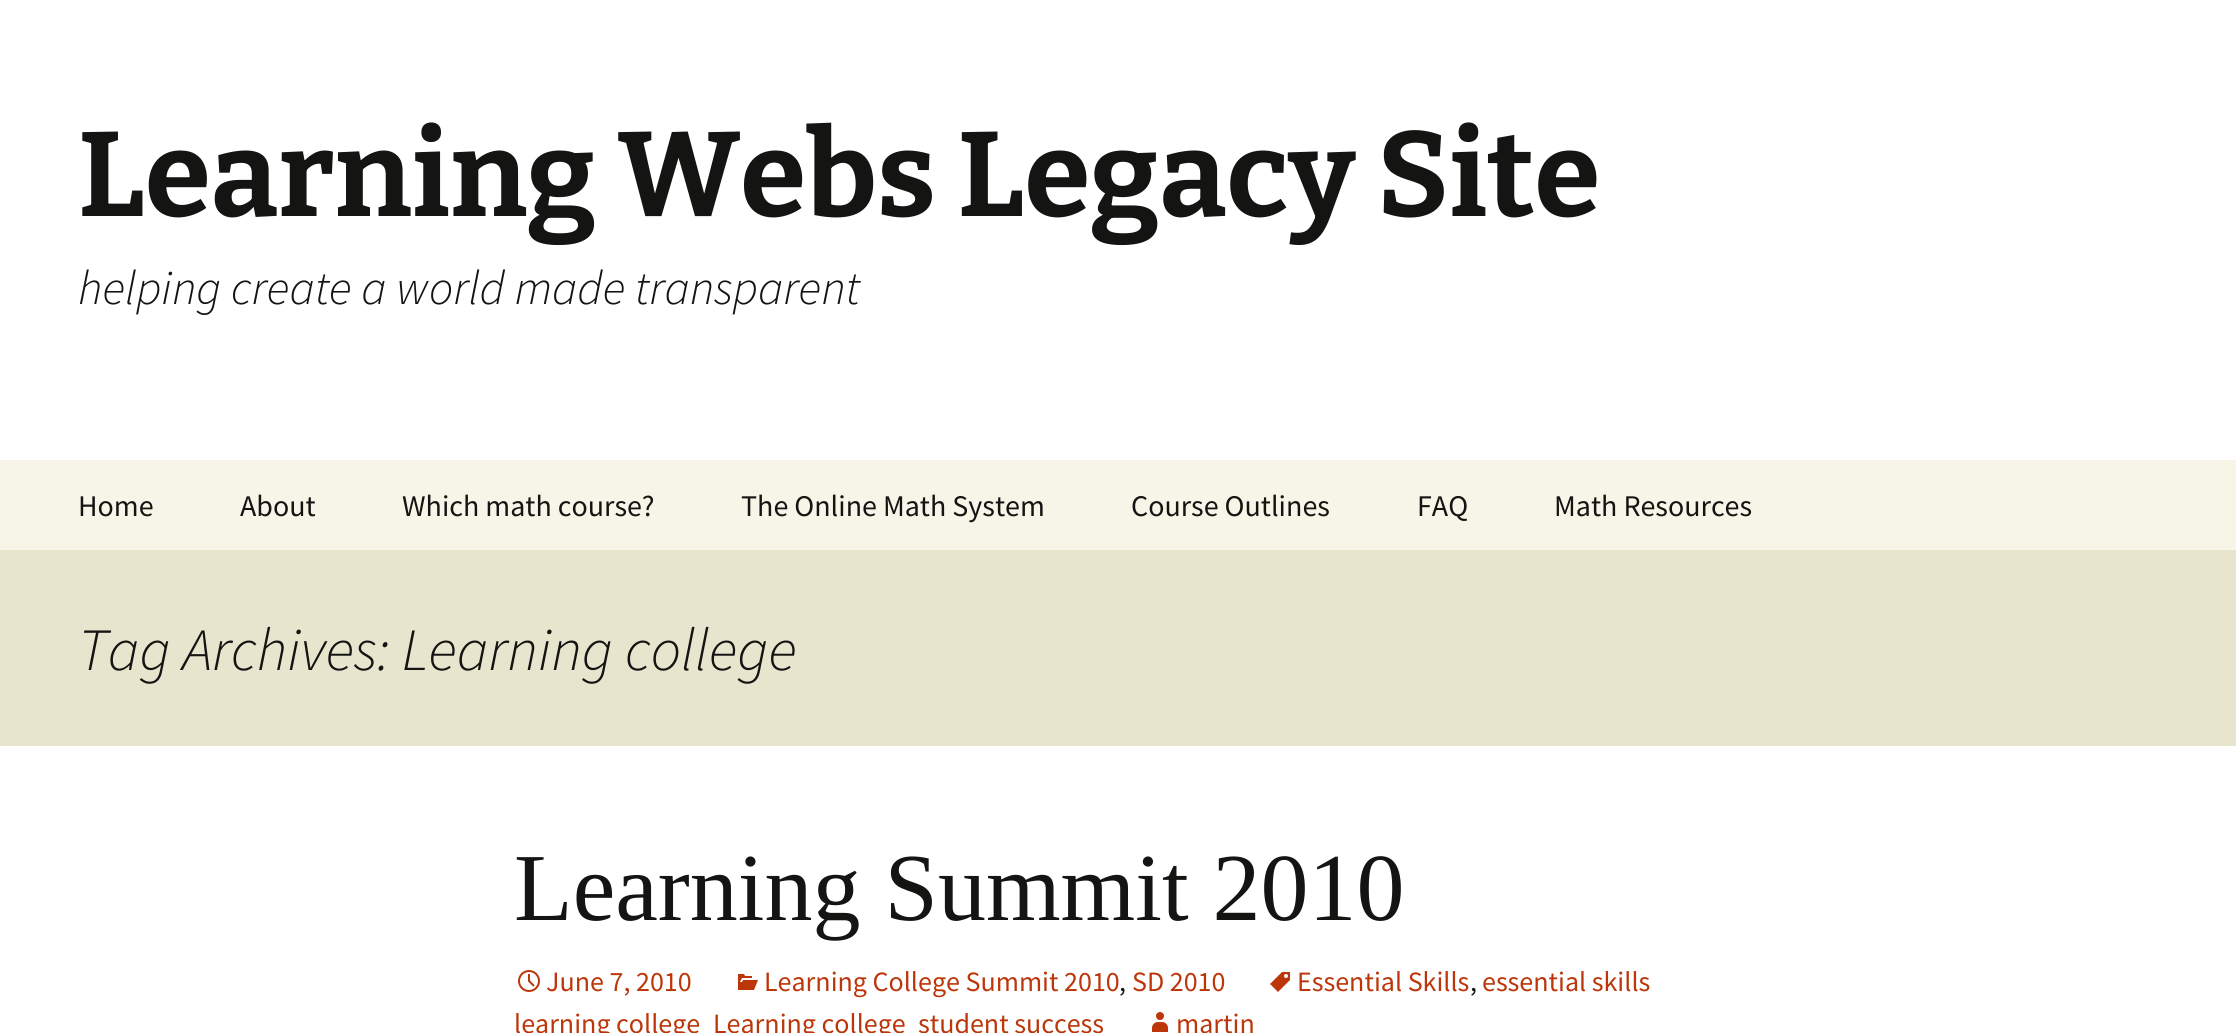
import math
import cairo

surface = cairo.ImageSurface(cairo.FORMAT_RGB24, 2236, 1033)
cr = cairo.Context(surface)
options = cairo.FontOptions()
options.set_hint_metrics(cairo.HINT_METRICS_OFF)
options.set_hint_style(cairo.HINT_STYLE_NONE)
cr.set_font_options(options)
cr.set_miter_limit(4)


def rgb(code):
    cr.set_source_rgb(*(v / 255 for v in bytes.fromhex(code[-6:])))


def image(path, x, y, w, h):
    cr.save()
    cr.set_source_surface(cairo.ImageSurface.create_from_png(path), x, y)
    cr.rectangle(x, y, w, h)
    cr.fill()
    cr.restore()


rgb("#ffffff")
cr.paint()
rgb("#f7f5e7")
cr.rectangle(0, 460, 2236, 90)
cr.fill()
rgb("#e8e5ce")
cr.rectangle(0, 550, 2236, 196)
cr.fill()
image("img/1.png", 1270, 972, 20, 20)
image("img/2.png", 518, 970, 22, 22)
image("img/3.png", 738, 974, 20, 16)
image("img/4.png", 1152, 1012, 16, 20)
cr.select_font_face("Bitter Thin")
cr.set_font_size(120)
rgb("#141412")
cr.move_to(78, 216)
cr.show_text("Learning Webs Legacy Site")
cr.select_font_face("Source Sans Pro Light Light", cairo.FONT_SLANT_ITALIC)
cr.set_font_size(48)
cr.move_to(78, 304)
cr.show_text("helping create a world made transparent")
cr.select_font_face("Source Sans Pro")
cr.set_font_size(30)
for x, y, s in [
    (78, 516, "Home"),
    (240, 516, "About"),
    (402, 516, "Which math course?"),
    (741, 516, "The Online Math System"),
    (1131, 516, "Course Outlines"),
    (1417, 516, "FAQ"),
    (1554, 516, "Math Resources"),
]:
    cr.move_to(x, y)
    cr.show_text(s)
cr.select_font_face("Source Sans Pro Light Light", cairo.FONT_SLANT_ITALIC)
cr.set_font_size(60)
cr.move_to(78, 670)
cr.show_text("Tag Archives: Learning college")
cr.select_font_face("Liberation Serif")
cr.set_font_size(96)
cr.move_to(514, 920)
cr.show_text("Learning Summit 2010")
cr.select_font_face("Source Sans Pro")
cr.set_font_size(28)
rgb("#bc360a")
cr.move_to(1297, 991)
cr.show_text("Essential Skills")
rgb("#141412")
cr.move_to(1470, 991)
cr.show_text(",")
rgb("#bc360a")
for x, y, s in [
    (1482, 991, "essential skills"),
    (514, 1033, "learning college"),
    (713, 1033, "Learning college"),
    (918, 1033, "student success"),
    (546, 991, "June 7, 2010"),
    (764, 991, "Learning College Summit 2010"),
]:
    cr.move_to(x, y)
    cr.show_text(s)
rgb("#141412")
cr.move_to(1119, 991)
cr.show_text(",")
rgb("#bc360a")
cr.move_to(1132, 991)
cr.show_text("SD 2010")
cr.move_to(1176, 1033)
cr.show_text("martin")
surface.write_to_png("page.png")
